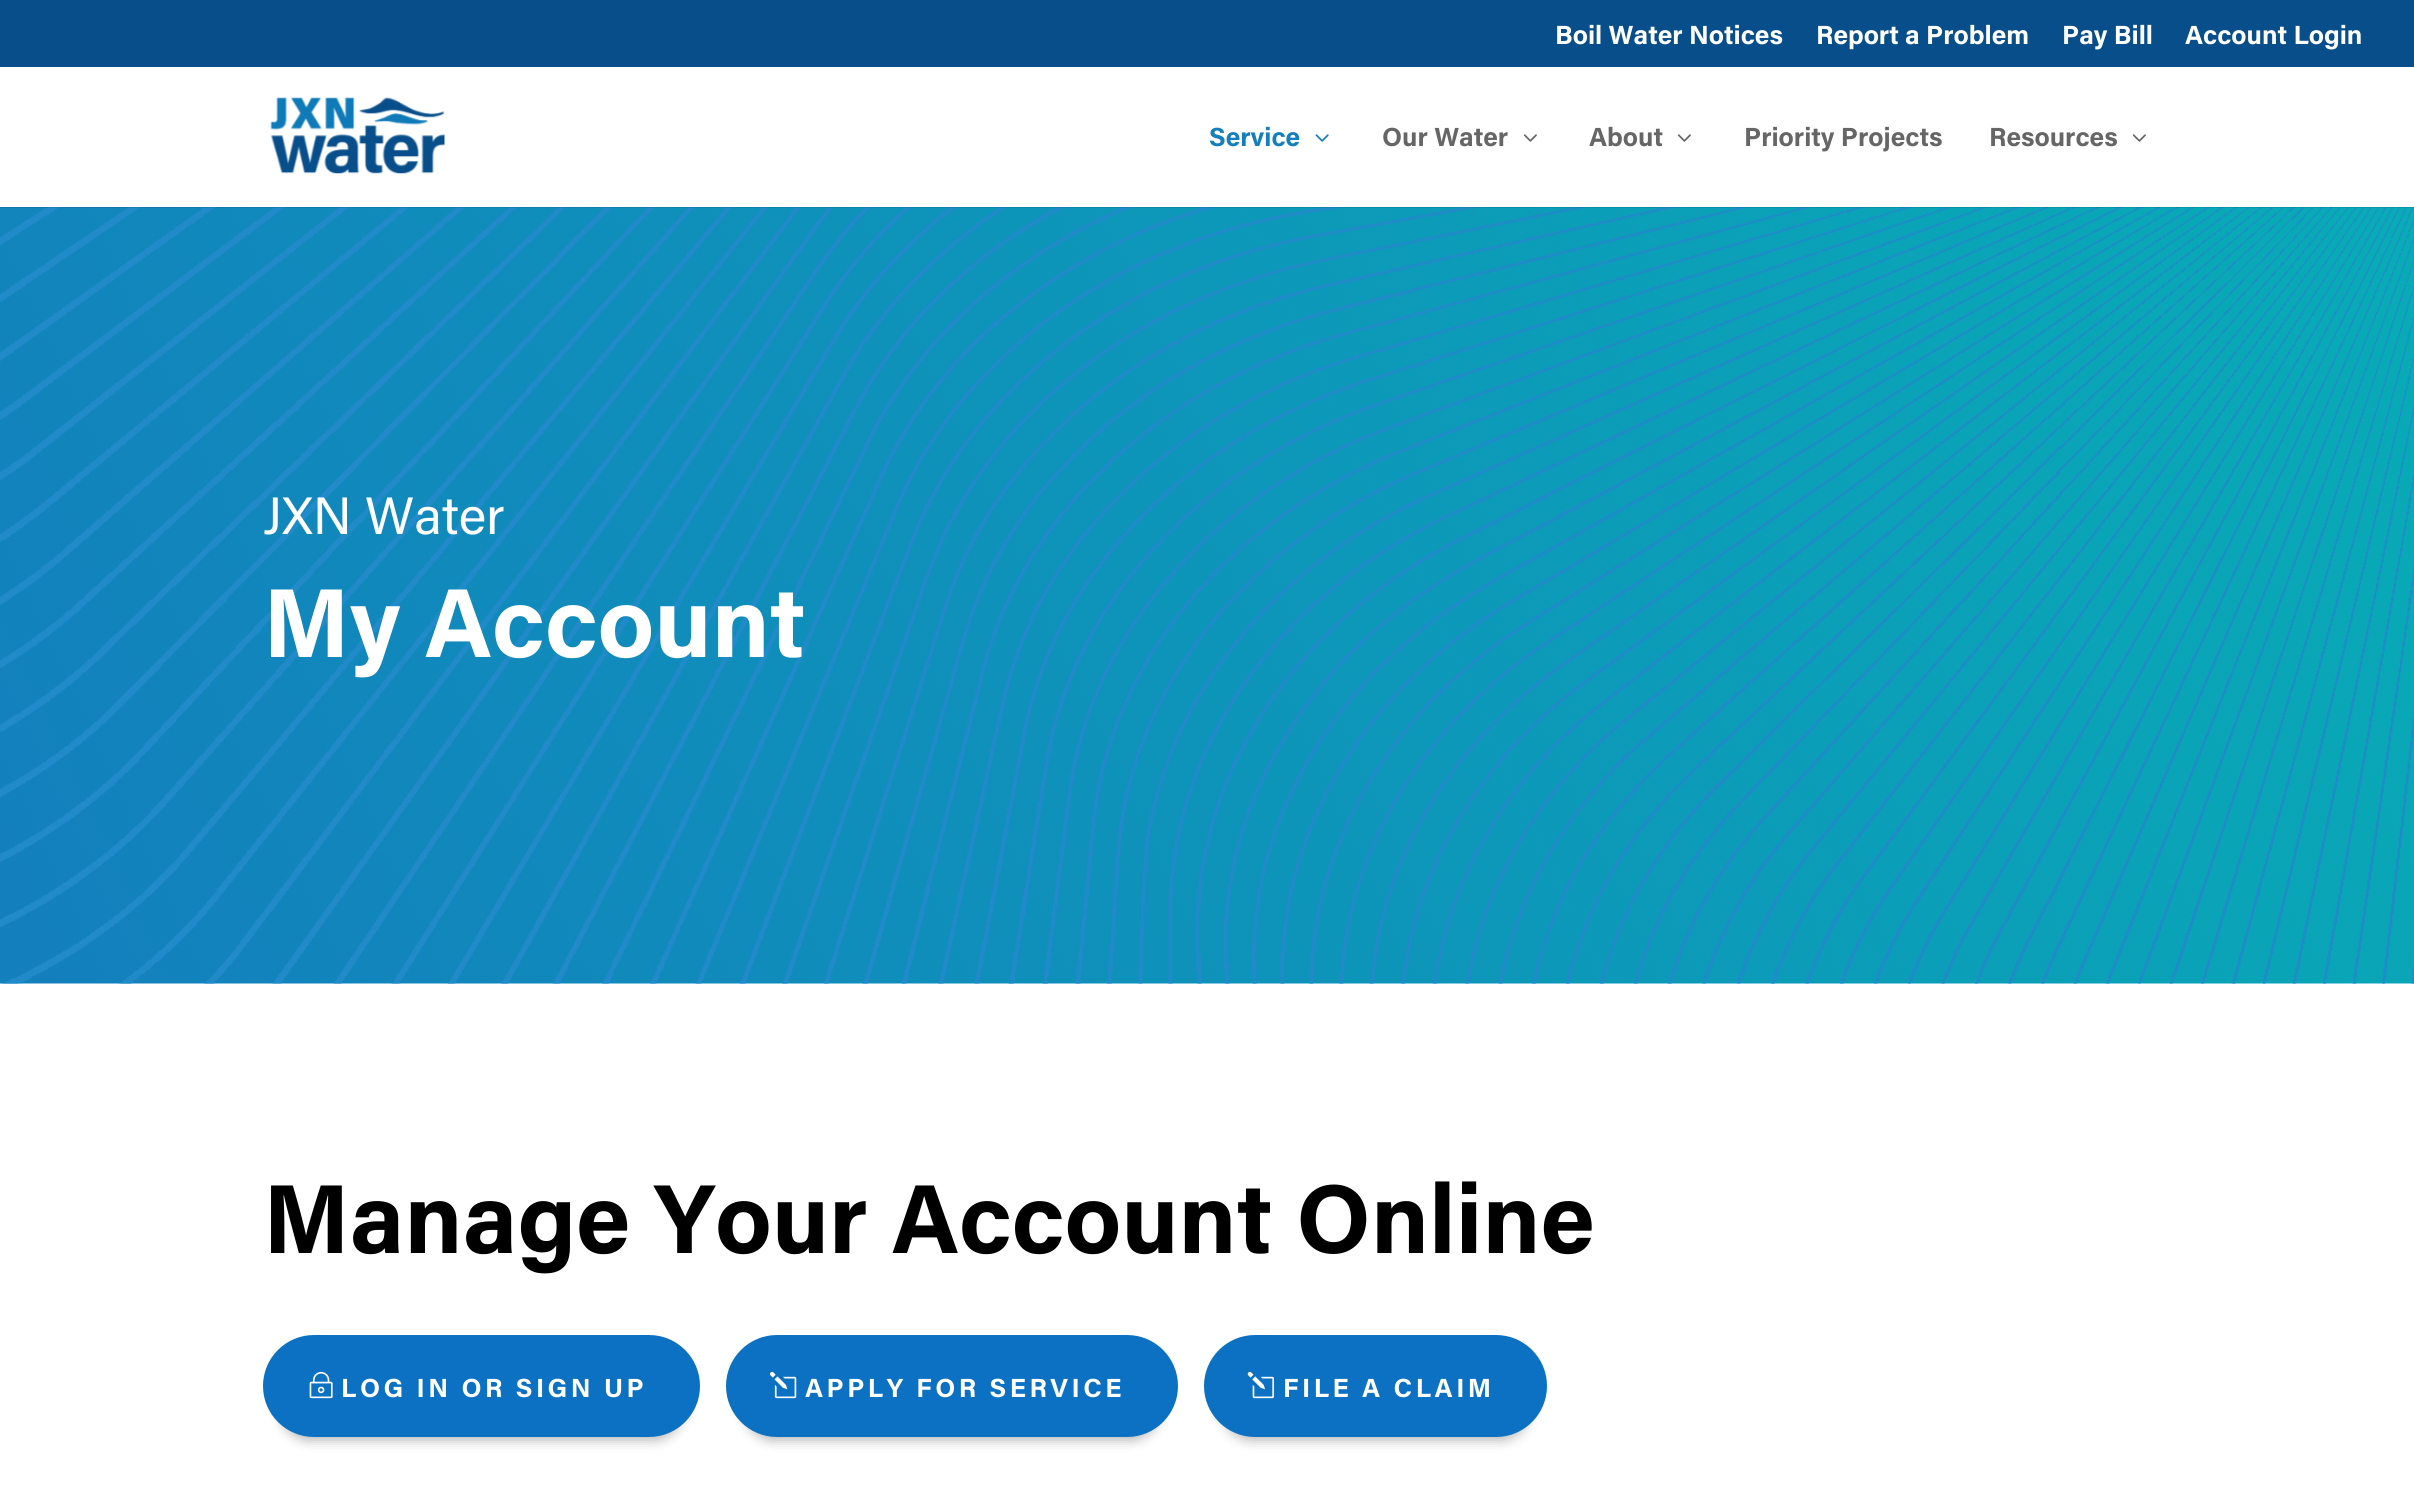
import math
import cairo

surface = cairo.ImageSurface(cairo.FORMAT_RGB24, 2414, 1487)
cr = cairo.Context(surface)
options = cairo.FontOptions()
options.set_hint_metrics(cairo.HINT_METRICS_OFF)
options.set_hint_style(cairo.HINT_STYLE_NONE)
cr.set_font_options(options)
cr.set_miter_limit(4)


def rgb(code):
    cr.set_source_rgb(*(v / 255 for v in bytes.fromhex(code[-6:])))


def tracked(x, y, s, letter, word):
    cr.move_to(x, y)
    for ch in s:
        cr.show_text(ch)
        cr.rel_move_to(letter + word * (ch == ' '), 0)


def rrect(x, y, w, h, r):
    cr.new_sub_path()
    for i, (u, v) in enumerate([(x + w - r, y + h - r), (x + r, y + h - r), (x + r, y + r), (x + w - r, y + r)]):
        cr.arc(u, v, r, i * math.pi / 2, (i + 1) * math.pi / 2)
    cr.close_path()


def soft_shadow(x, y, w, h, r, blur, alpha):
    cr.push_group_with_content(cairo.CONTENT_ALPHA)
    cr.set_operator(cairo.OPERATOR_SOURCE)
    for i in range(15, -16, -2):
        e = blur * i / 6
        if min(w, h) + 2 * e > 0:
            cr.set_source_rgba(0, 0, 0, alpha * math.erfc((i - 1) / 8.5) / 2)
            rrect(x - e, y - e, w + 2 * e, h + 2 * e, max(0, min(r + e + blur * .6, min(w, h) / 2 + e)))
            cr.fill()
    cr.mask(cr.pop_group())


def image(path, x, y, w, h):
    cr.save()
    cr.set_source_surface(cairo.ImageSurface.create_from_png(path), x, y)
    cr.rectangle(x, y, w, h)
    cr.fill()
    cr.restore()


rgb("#ffffff")
cr.paint()
rgb("#084e8a")
cr.rectangle(0, 0, 2414, 67)
cr.fill()
image("img/4.png", 0, 207, 2414, 777)
cr.set_source_rgba(0, 0, 0, 0.1)
cr.rectangle(0, 207, 2414, 1)
cr.fill()
image("img/1.png", 270, 97, 175, 77)
image("img/2.png", 1315, 134, 14, 8)
image("img/3.png", 1523, 134, 14, 8)
image("img/3.png", 1677, 134, 14, 8)
image("img/3.png", 2132, 134, 14, 8)
rgb("#000000")
soft_shadow(280, 1374, 403, 66, 33, 6, 0.3)
rgb("#0c71c3")
rrect(263, 1335, 437, 102, 51)
cr.fill()
image("img/5.png", 309, 1371, 24, 28)
rgb("#000000")
soft_shadow(744, 1374, 416, 66, 33, 6, 0.3)
rgb("#0c71c3")
rrect(726, 1335, 452, 102, 51)
cr.fill()
image("img/6.png", 770, 1371, 27, 28)
rgb("#000000")
soft_shadow(1222, 1374, 308, 66, 33, 6, 0.3)
rgb("#0c71c3")
rrect(1204, 1335, 343, 102, 51)
cr.fill()
image("img/7.png", 1247, 1371, 27, 28)
cr.select_font_face("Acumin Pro", cairo.FONT_SLANT_NORMAL, cairo.FONT_WEIGHT_BOLD)
cr.set_font_size(26.25)
rgb("#ffffff")
for x, y, s in [
    (1555, 44, "Boil Water Notices"),
    (1816, 44, "Report a Problem"),
    (2062, 44, "Pay Bill"),
    (2185, 44, "Account Login"),
]:
    cr.move_to(x, y)
    cr.show_text(s)
rgb("#137fbd")
cr.move_to(1209, 146)
cr.show_text("Service")
rgb("#666666")
for x, y, s in [
    (1382, 146, "Our Water"),
    (1589, 146, "About"),
    (1744, 146, "Priority Projects"),
    (1989, 146, "Resources"),
]:
    cr.move_to(x, y)
    cr.show_text(s)
cr.select_font_face("Acumin Pro")
cr.set_font_size(52.5)
rgb("#ffffff")
cr.move_to(263, 534)
cr.show_text("JXN Water")
cr.select_font_face("Acumin Pro", cairo.FONT_SLANT_NORMAL, cairo.FONT_WEIGHT_BOLD)
cr.set_font_size(98)
cr.move_to(263, 657)
cr.show_text("My Account")
rgb("#000000")
cr.move_to(263, 1253)
cr.show_text("Manage Your Account Online")
cr.set_font_size(26.25)
rgb("#ffffff")
for x, y, s in [
    (341, 1397, "LOG IN OR SIGN UP"),
    (805, 1397, "APPLY FOR SERVICE"),
    (1283, 1397, "FILE A CLAIM"),
]:
    tracked(x, y, s, 3.5, 0)
surface.write_to_png("page.png")
